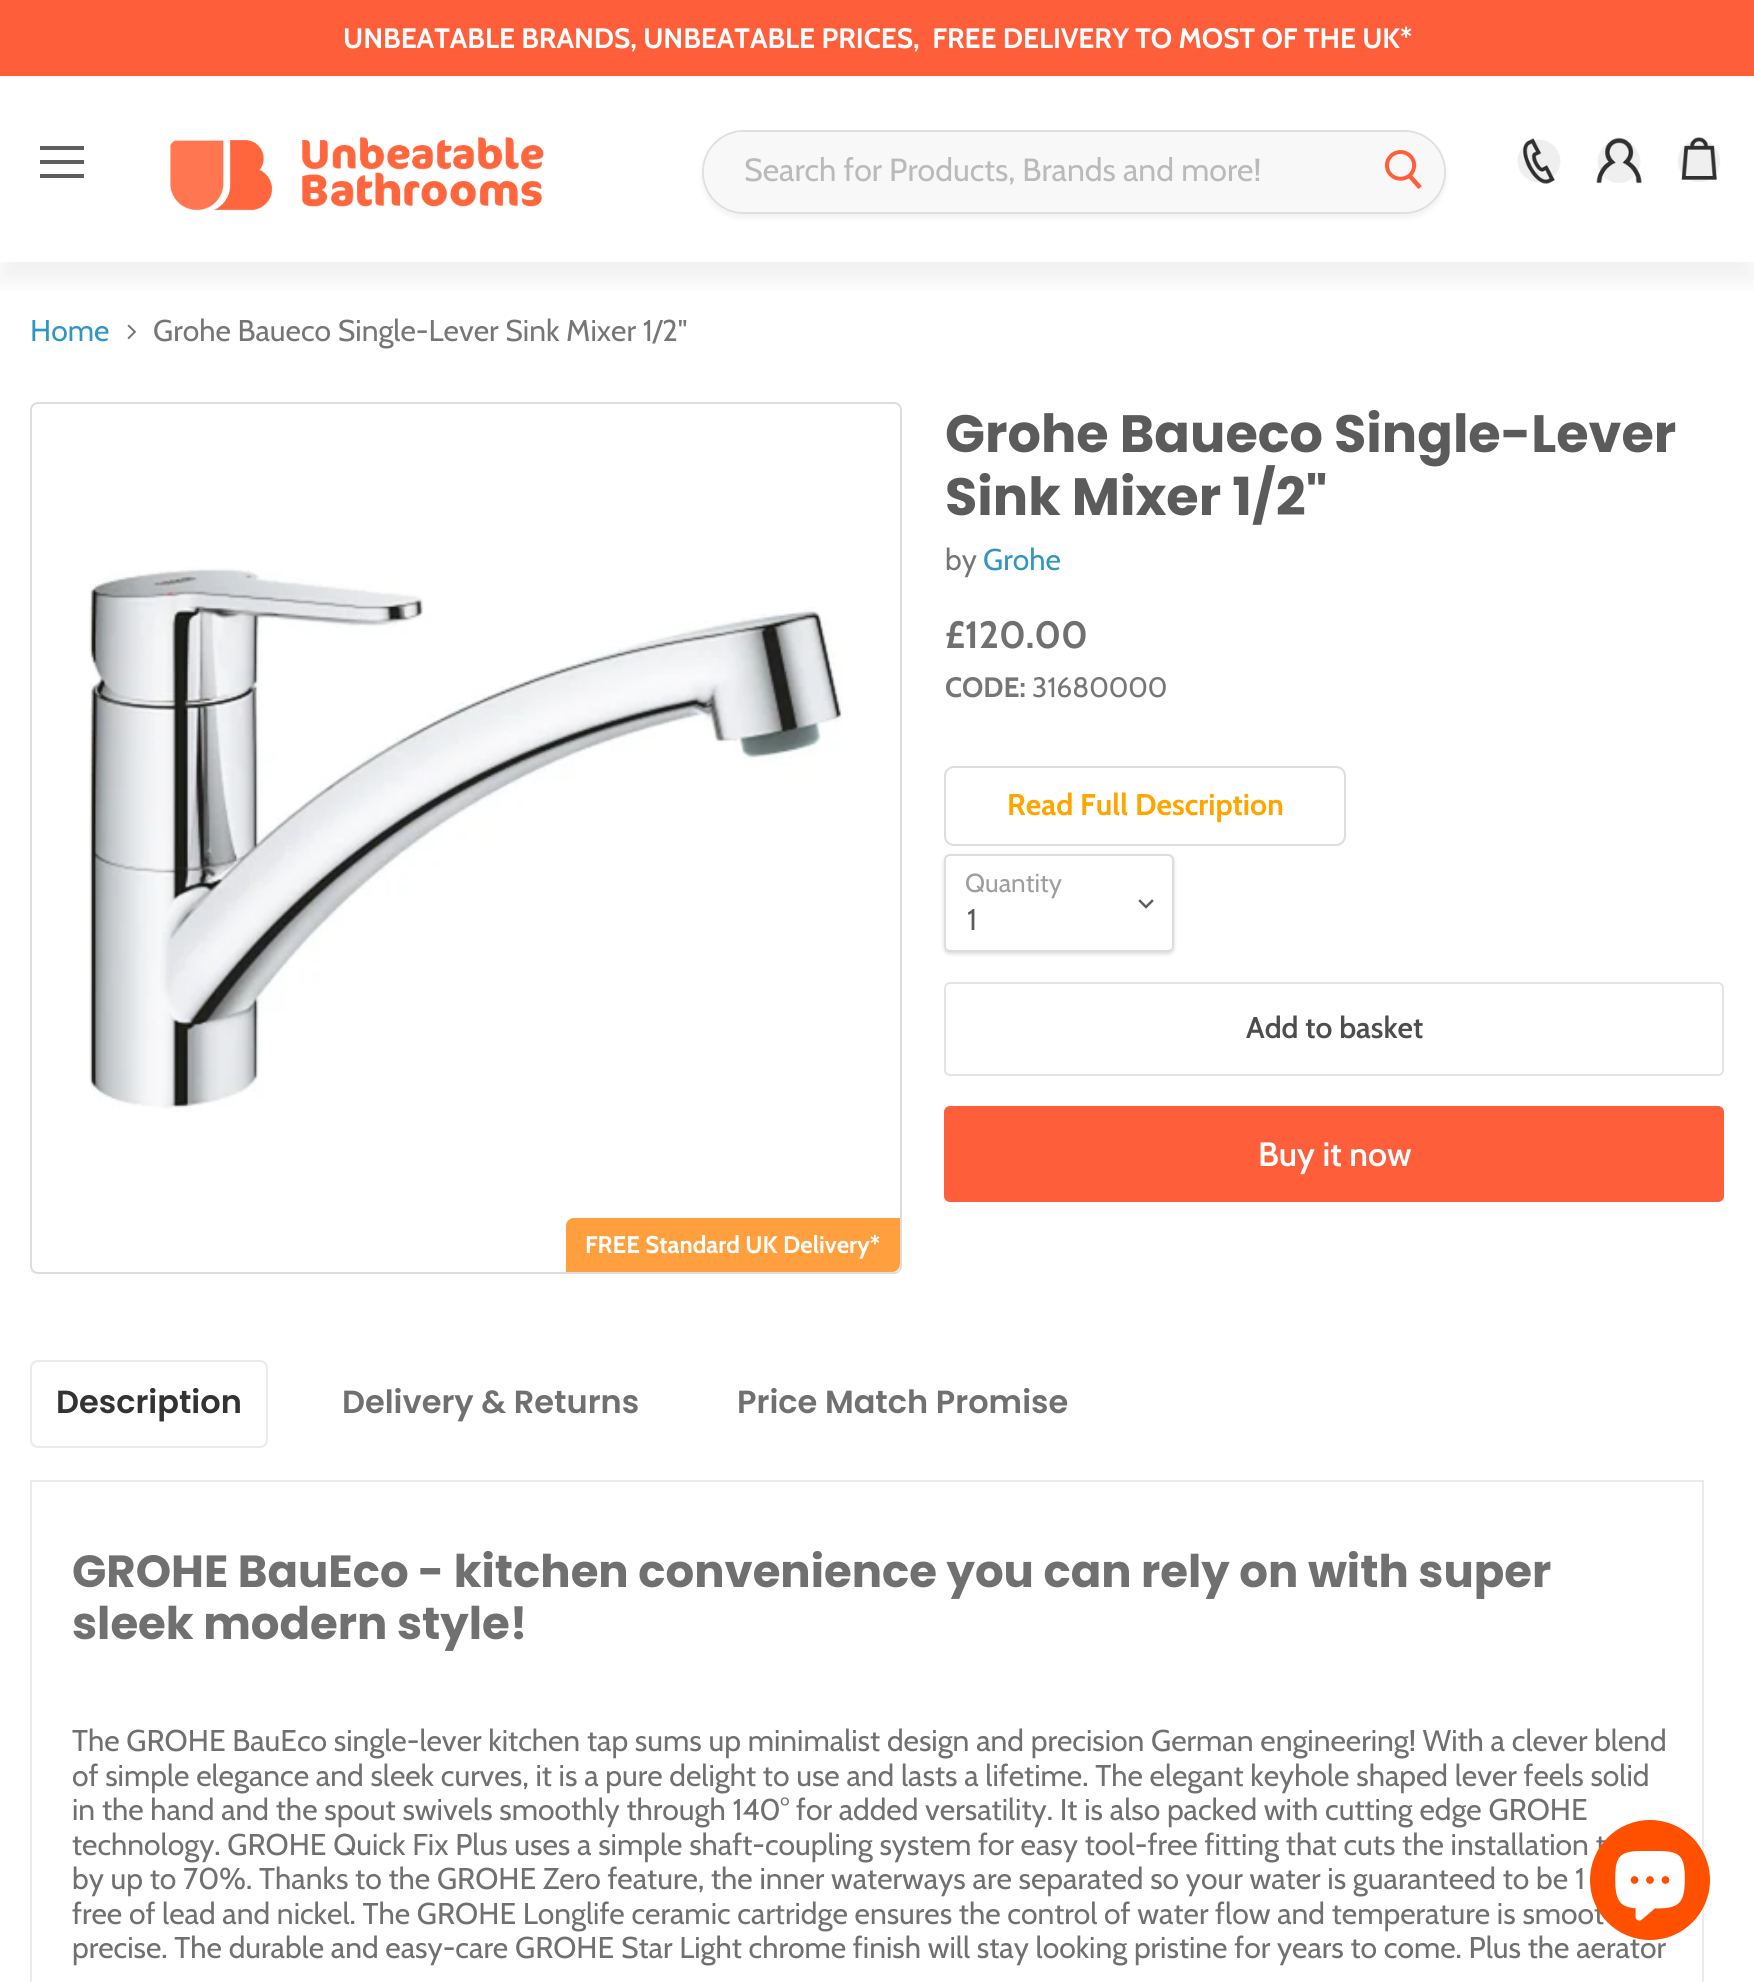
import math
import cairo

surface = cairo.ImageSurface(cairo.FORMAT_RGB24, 1754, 1982)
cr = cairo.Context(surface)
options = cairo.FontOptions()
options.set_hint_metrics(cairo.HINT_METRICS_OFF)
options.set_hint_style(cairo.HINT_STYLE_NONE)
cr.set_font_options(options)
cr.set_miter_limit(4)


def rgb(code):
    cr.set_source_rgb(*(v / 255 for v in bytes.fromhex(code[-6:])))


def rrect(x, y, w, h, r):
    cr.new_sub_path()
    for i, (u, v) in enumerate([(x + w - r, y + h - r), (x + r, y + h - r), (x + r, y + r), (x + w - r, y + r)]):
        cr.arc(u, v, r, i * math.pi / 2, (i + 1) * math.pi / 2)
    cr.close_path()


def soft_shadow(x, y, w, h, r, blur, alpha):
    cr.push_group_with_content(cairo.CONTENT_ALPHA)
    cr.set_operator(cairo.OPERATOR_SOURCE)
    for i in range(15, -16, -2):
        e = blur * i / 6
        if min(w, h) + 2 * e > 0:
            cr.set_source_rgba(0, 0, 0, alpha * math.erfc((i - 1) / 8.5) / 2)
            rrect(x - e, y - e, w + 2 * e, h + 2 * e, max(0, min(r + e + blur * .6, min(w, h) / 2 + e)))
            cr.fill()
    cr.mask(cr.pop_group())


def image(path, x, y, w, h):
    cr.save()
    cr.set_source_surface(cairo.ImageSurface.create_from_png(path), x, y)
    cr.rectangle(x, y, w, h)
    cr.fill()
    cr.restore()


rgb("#ffffff")
cr.paint()
rgb("#ff5e3b")
cr.rectangle(0, 0, 1754, 76)
cr.fill()
cr.save()
cr.rectangle(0, 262, 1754, 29)
cr.clip()
rgb("#808080")
soft_shadow(0, 96, 1754, 186, 0, 10, 0.11)
cr.restore()
for x, y, w, h, color in [
    (40, 146, 44, 4, "#5e5e5e"),
    (40, 160, 44, 4, "#5e5e5e"),
    (40, 174, 44, 4, "#5e5e5e"),
]:
    rgb(color)
    cr.rectangle(x, y, w, h)
    cr.fill()
image("img/1.png", 170, 136, 374, 75)
rgb("#808080")
soft_shadow(702, 134, 744, 84, 42, 3, 0.11)
rgb("#f8f8f8")
rrect(702, 130, 744, 84, 42)
cr.fill()
rrect(703, 131, 742, 82, 41)
cr.set_source_rgba(0.502, 0.502, 0.502, 0.2)
cr.stroke()
rgb("#f8f8f8")
rrect(704, 132, 660, 80, 40)
cr.fill()
cr.arc(1404, 172, 40, 0, 2 * math.pi)
cr.fill()
image("img/2.png", 1384, 150, 38, 39)
image("img/3.png", 1517, 138, 44, 46)
image("img/4.png", 1596, 137, 46, 47)
image("img/5.png", 1677, 137, 44, 45)
image("img/6.png", 127, 324, 9, 16)
rrect(945, 767, 400, 78, 9)
rgb("#dddddd")
cr.stroke()
rgb("#000000")
soft_shadow(944, 856, 230, 98, 6, 2, 0.15)
rgb("#ffffff")
rrect(945, 855, 228, 96, 5)
cr.fill_preserve()
rgb("#dddddd")
cr.stroke()
cr.new_path()
cr.move_to(1146, 907)
cr.line_to(1152, 901)
cr.move_to(1146, 907)
cr.line_to(1140, 901)
rgb("#5e5e5e")
cr.set_line_width(2.5)
cr.set_line_cap(cairo.LINE_CAP_SQUARE)
cr.stroke()
rrect(945, 983, 778, 92, 5)
rgb("#e5e3e3")
cr.set_line_width(2)
cr.set_line_cap(cairo.LINE_CAP_BUTT)
cr.stroke()
rgb("#ff5e3b")
rrect(945, 1107, 778, 94, 5)
cr.fill_preserve()
cr.stroke()
rrect(31, 403, 870, 870, 7)
rgb("#dddddd")
cr.stroke()
image("img/7.png", 89, 567, 754, 545)
rgb("#ff9f3d")
cr.new_path()
cr.move_to(574, 1218)
cr.line_to(900, 1218)
cr.line_to(900, 1264)
cr.curve_to(900, 1268.5, 896.5, 1272, 892, 1272)
cr.line_to(566, 1272)
cr.line_to(566, 1226)
cr.curve_to(566, 1221.5, 569.5, 1218, 574, 1218)
cr.close_path()
cr.fill()
rrect(31, 1361, 236, 86, 7)
rgb("#ebebeb")
cr.stroke()
cr.rectangle(31, 1481, 1672, 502)
cr.stroke()
cr.select_font_face("Cabin", cairo.FONT_SLANT_NORMAL, cairo.FONT_WEIGHT_BOLD)
cr.set_font_size(28.1)
rgb("#ffffff")
cr.move_to(343, 48)
cr.show_text("UNBEATABLE BRANDS, UNBEATABLE PRICES,  FREE DELIVERY TO MOST OF THE UK*")
cr.select_font_face("Cabin")
cr.set_font_size(32)
rgb("#bababa")
cr.move_to(744, 181)
cr.show_text("Search for Products, Brands and more!")
cr.set_font_size(30)
rgb("#3296c2")
cr.move_to(30, 341)
cr.show_text("Home")
rgb("#767676")
cr.move_to(153, 341)
cr.show_text("Grohe Baueco Single-Lever Sink Mixer 1/2\"")
cr.select_font_face("Poppins", cairo.FONT_SLANT_NORMAL, cairo.FONT_WEIGHT_BOLD)
cr.set_font_size(52.5)
rgb("#5b5b5b")
cr.move_to(945, 452)
cr.show_text("Grohe Baueco Single-Lever")
cr.move_to(945, 515)
cr.show_text("Sink Mixer 1/2\"")
cr.select_font_face("Cabin")
cr.set_font_size(30)
rgb("#767676")
cr.move_to(945, 570)
cr.show_text("by")
rgb("#3296c2")
cr.move_to(983, 570)
cr.show_text("Grohe")
cr.select_font_face("Cabin", cairo.FONT_SLANT_NORMAL, cairo.FONT_WEIGHT_BOLD)
cr.set_font_size(38)
rgb("#707070")
cr.move_to(945, 648)
cr.show_text("£120.00")
cr.set_font_size(28)
rgb("#767676")
cr.move_to(945, 697)
cr.show_text("CODE:")
cr.select_font_face("Cabin")
cr.move_to(1032, 697)
cr.show_text("31680000")
cr.select_font_face("Cabin", cairo.FONT_SLANT_NORMAL, cairo.FONT_WEIGHT_BOLD)
cr.set_font_size(30)
rgb("#ffa500")
cr.move_to(1007, 815)
cr.show_text("Read Full Description")
cr.select_font_face("Cabin")
cr.set_font_size(26)
rgb("#9e9e9e")
cr.move_to(965, 892)
cr.show_text("Quantity")
cr.set_font_size(30)
rgb("#5b5b5b")
cr.move_to(967, 930)
cr.show_text("1")
cr.select_font_face("Cabin SemiBold")
rgb("#4d4d4d")
cr.move_to(1246, 1038)
cr.show_text("Add to basket")
cr.set_font_size(33.75)
rgb("#ffffff")
cr.move_to(1258, 1166)
cr.show_text("Buy it now")
cr.select_font_face("Cabin", cairo.FONT_SLANT_NORMAL, cairo.FONT_WEIGHT_BOLD)
cr.set_font_size(24)
cr.move_to(585, 1253)
cr.show_text("FREE Standard UK Delivery*")
cr.select_font_face("Poppins SemiBold")
cr.set_font_size(32)
rgb("#333333")
cr.move_to(56, 1413)
cr.show_text("Description")
rgb("#707070")
cr.move_to(342, 1413)
cr.show_text("Delivery & Returns")
cr.move_to(737, 1413)
cr.show_text("Price Match Promise")
cr.select_font_face("Poppins", cairo.FONT_SLANT_NORMAL, cairo.FONT_WEIGHT_BOLD)
cr.set_font_size(45)
cr.move_to(72, 1587)
cr.show_text("GROHE BauEco - kitchen convenience you can rely on with super")
cr.move_to(72, 1639)
cr.show_text("sleek modern style!")
cr.select_font_face("Cabin")
cr.set_font_size(30)
for x, y, s in [
    (72, 1751, "The GROHE BauEco single-lever kitchen tap sums up minimalist design and precision German engineering! With a clever blend"),
    (72, 1786, "of simple elegance and sleek curves, it is a pure delight to use and lasts a lifetime. The elegant keyhole shaped lever feels solid"),
    (72, 1820, "in the hand and the spout swivels smoothly through 140° for added versatility. It is also packed with cutting edge GROHE"),
    (72, 1855, "technology. GROHE Quick Fix Plus uses a simple shaft-coupling system for easy tool-free fitting that cuts the installation t"),
    (72, 1889, "by up to 70%. Thanks to the GROHE Zero feature, the inner waterways are separated so your water is guaranteed to be 1"),
    (72, 1924, "free of lead and nickel. The GROHE Longlife ceramic cartridge ensures the control of water flow and temperature is smoot"),
    (72, 1958, "precise. The durable and easy-care GROHE Star Light chrome finish will stay looking pristine for years to come. Plus the aerator"),
]:
    cr.move_to(x, y)
    cr.show_text(s)
rgb("#ff5000")
cr.new_path()
cr.arc(1650, 1880, 60, 0, 2 * math.pi)
cr.fill()
image("img/8.png", 1615, 1851, 70, 70)
surface.write_to_png("page.png")
